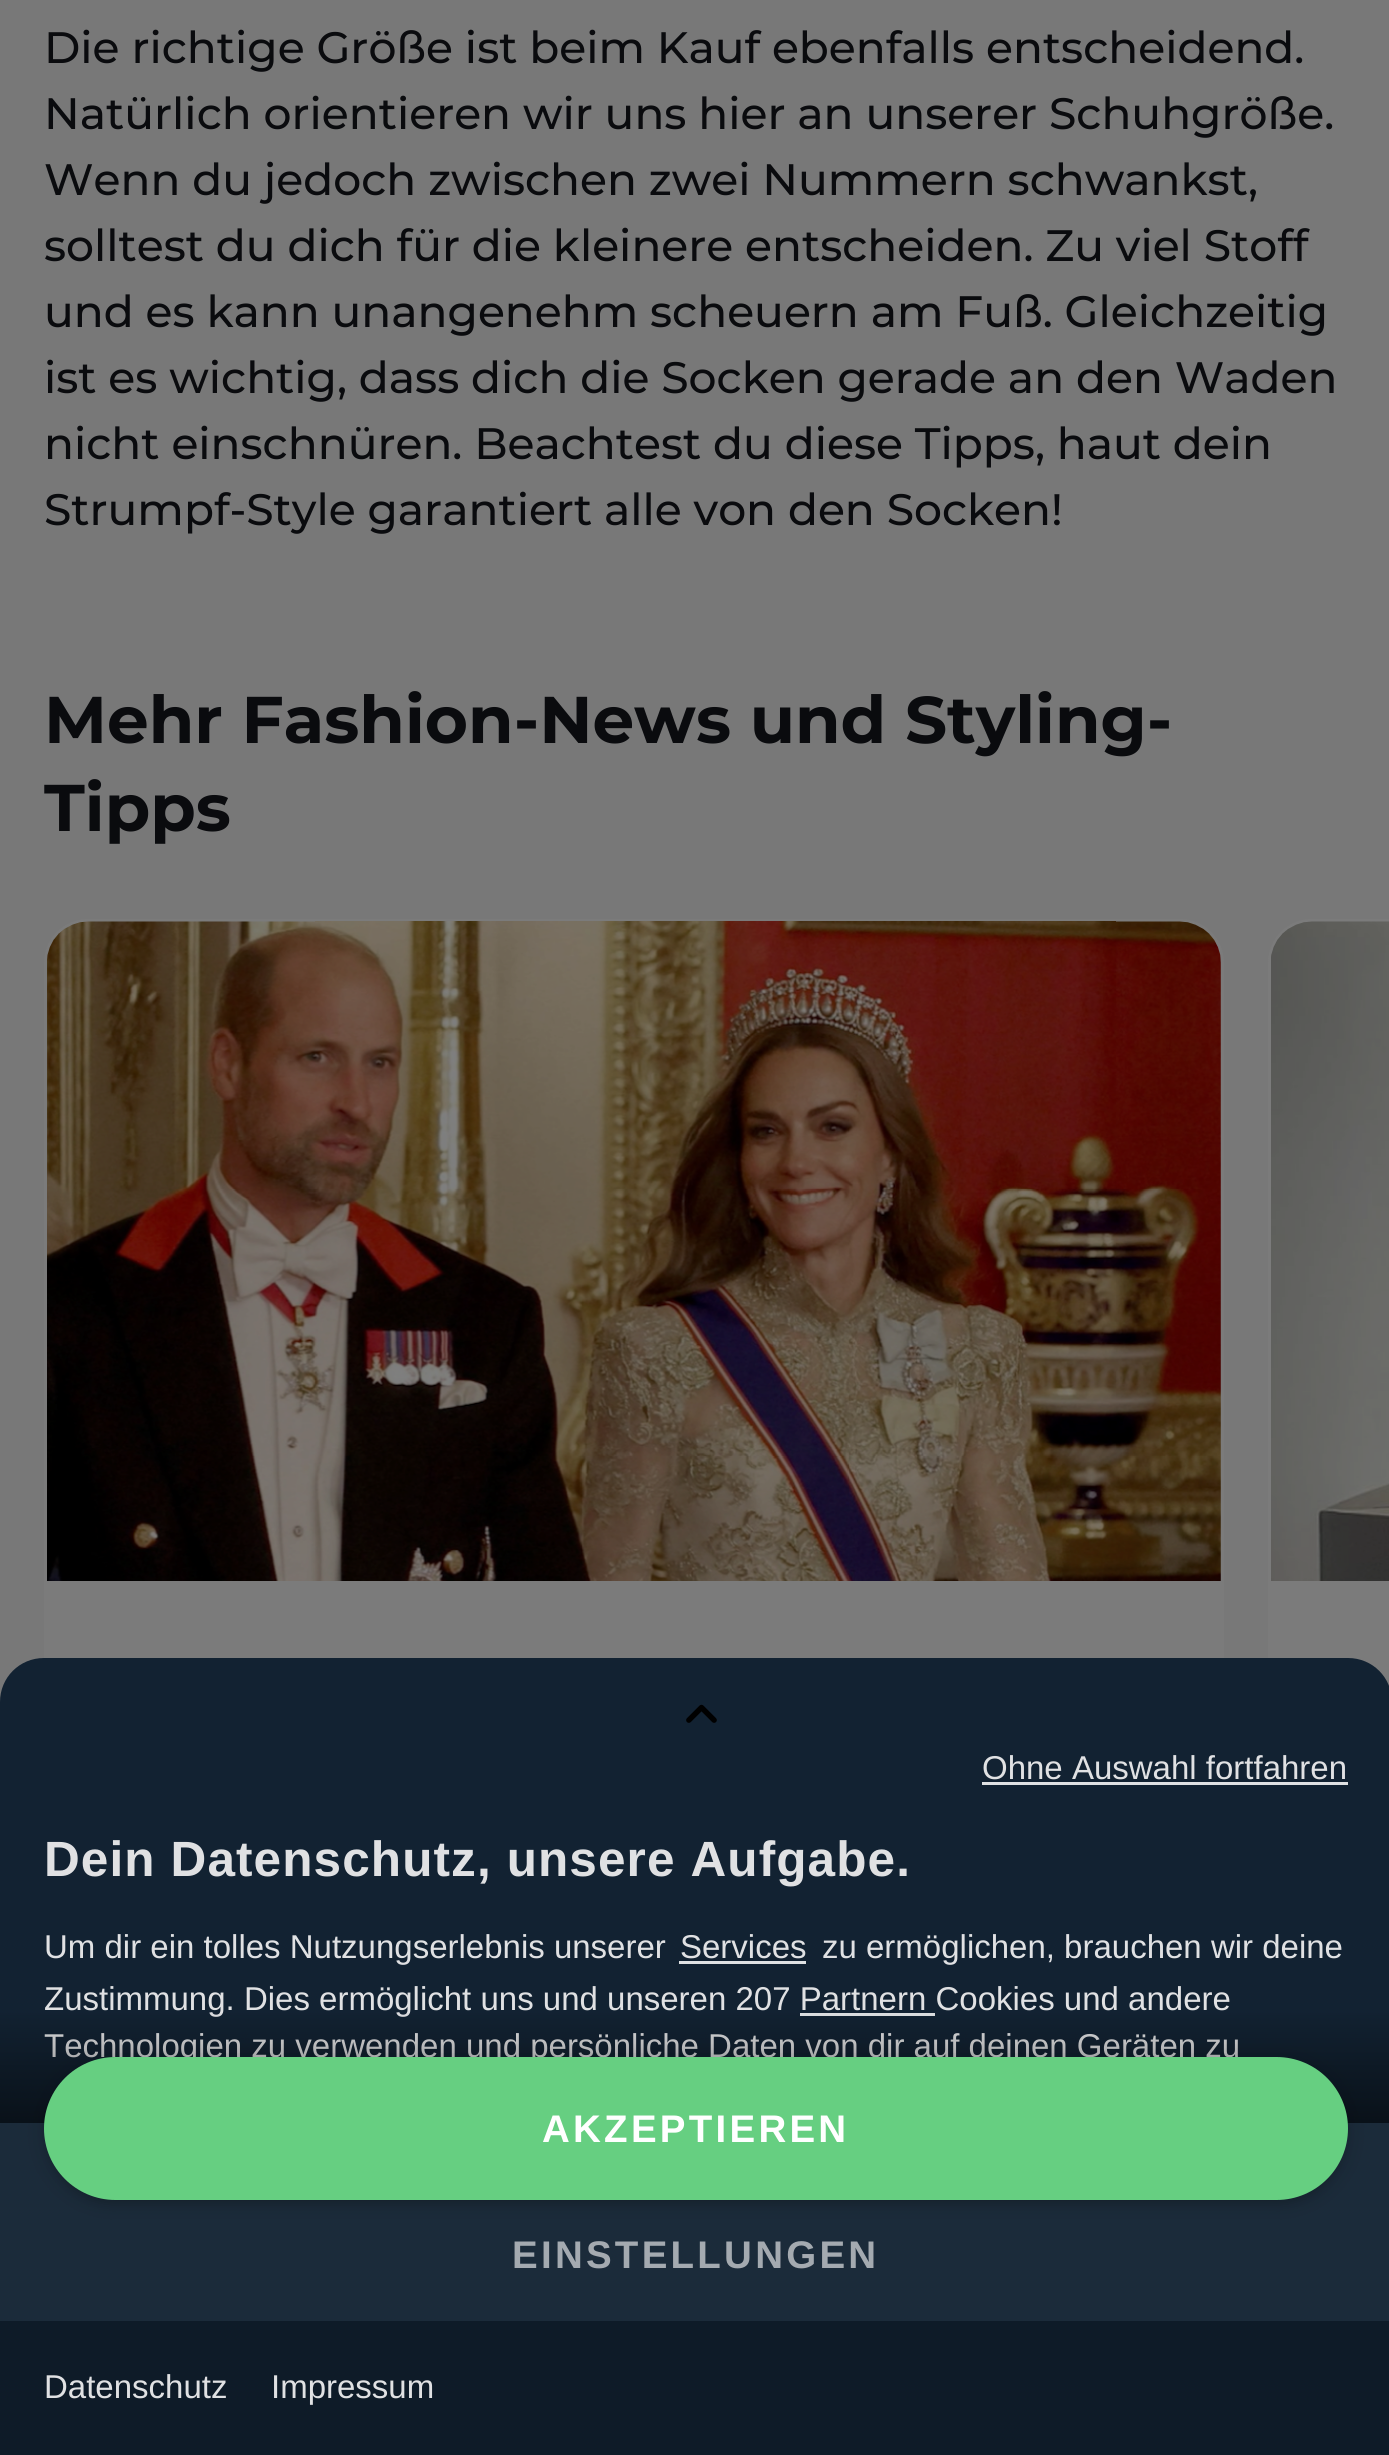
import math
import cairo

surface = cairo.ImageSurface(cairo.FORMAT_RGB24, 1389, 2455)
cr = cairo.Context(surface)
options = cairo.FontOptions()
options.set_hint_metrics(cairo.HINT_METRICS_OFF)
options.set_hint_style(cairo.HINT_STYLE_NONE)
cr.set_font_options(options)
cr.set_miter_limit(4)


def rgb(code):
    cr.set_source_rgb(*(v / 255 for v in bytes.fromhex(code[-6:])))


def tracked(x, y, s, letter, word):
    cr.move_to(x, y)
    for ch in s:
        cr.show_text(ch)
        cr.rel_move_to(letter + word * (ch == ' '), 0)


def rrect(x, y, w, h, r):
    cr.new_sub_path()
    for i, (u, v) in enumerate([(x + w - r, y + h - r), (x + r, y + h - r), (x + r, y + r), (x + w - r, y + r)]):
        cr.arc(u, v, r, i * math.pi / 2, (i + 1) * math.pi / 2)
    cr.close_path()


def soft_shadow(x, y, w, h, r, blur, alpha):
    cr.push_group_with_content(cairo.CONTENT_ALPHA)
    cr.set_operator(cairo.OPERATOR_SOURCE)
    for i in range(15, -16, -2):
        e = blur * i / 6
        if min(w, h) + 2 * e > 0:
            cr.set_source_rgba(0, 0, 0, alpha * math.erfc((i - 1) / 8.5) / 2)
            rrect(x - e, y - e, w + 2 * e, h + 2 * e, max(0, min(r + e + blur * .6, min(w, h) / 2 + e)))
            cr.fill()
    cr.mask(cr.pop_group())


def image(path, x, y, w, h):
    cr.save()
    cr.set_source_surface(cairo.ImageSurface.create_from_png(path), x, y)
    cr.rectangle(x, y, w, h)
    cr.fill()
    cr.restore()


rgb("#787878")
cr.paint()
rgb("#7b7b7b")
rrect(44, 919, 1180, 968, 44)
cr.fill()
image("img/1.png", 47, 921, 1174, 660)
cr.new_path()
cr.move_to(1312, 919)
cr.line_to(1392, 919)
cr.line_to(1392, 1887)
cr.line_to(1312, 1887)
cr.curve_to(1287.5, 1887, 1268, 1867.5, 1268, 1843)
cr.line_to(1268, 963)
cr.curve_to(1268, 938.5, 1287.5, 919, 1312, 919)
cr.close_path()
cr.fill()
image("img/2.png", 1271, 921, 118, 660)
rgb("#122232")
cr.new_path()
cr.move_to(44, 1658)
cr.line_to(1348, 1658)
cr.curve_to(1372.5, 1658, 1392, 1677.5, 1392, 1702)
cr.line_to(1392, 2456)
cr.line_to(0, 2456)
cr.line_to(0, 1702)
cr.curve_to(0, 1677.5, 19.5, 1658, 44, 1658)
cr.close_path()
cr.fill()
image("img/3.png", 686, 1704, 31, 19)
for x, y, w, h, color in [
    (982, 1782, 366, 3, "#e0e2e4"),
    (679, 1961, 127, 3, "#e0e2e4"),
    (0, 2123, 1389, 198, "#1b2b3a"),
    (0, 2321, 1389, 134, "#0e1b28"),
]:
    rgb(color)
    cr.rectangle(x, y, w, h)
    cr.fill()
cr.select_font_face("Montserrat Medium")
cr.set_font_size(44)
rgb("#0a0b0e")
for x, y, s in [
    (44, 63, "Die richtige Größe ist beim Kauf ebenfalls entscheidend."),
    (44, 129, "Natürlich orientieren wir uns hier an unserer Schuhgröße."),
    (44, 195, "Wenn du jedoch zwischen zwei Nummern schwankst,"),
    (44, 261, "solltest du dich für die kleinere entscheiden. Zu viel Stoff"),
    (44, 327, "und es kann unangenehm scheuern am Fuß. Gleichzeitig"),
    (44, 393, "ist es wichtig, dass dich die Socken gerade an den Waden"),
    (44, 459, "nicht einschnüren. Beachtest du diese Tipps, haut dein"),
    (44, 525, "Strumpf-Style garantiert alle von den Socken!"),
]:
    cr.move_to(x, y)
    cr.show_text(s)
cr.select_font_face("Montserrat", cairo.FONT_SLANT_NORMAL, cairo.FONT_WEIGHT_BOLD)
cr.set_font_size(66)
cr.move_to(44, 743)
cr.show_text("Mehr Fashion-News und Styling-")
cr.move_to(44, 831)
cr.show_text("Tipps")
cr.select_font_face("Liberation Sans")
cr.set_font_size(33)
rgb("#e0e1e3")
cr.move_to(982, 1779)
cr.show_text("Ohne Auswahl fortfahren")
cr.select_font_face("Liberation Sans", cairo.FONT_SLANT_NORMAL, cairo.FONT_WEIGHT_BOLD)
cr.set_font_size(49.5)
tracked(44, 1876, "Dein Datenschutz, unsere Aufgabe.", 1.1, 0)
cr.select_font_face("Liberation Sans")
cr.set_font_size(33)
for x, y, s in [
    (44, 1958, "Um dir ein tolles Nutzungserlebnis unserer"),
    (680, 1958, "Services"),
    (822, 1958, "zu ermöglichen, brauchen wir deine"),
    (44, 2010, "Zustimmung. Dies ermöglicht uns und unseren 207 Partnern Cookies und andere"),
]:
    cr.move_to(x, y)
    cr.show_text(s)
rgb("#e0e2e4")
cr.rectangle(800, 2013, 135, 3)
cr.fill()
rgb("#e0e1e3")
cr.move_to(44, 2057)
cr.show_text("Technologien zu verwenden und persönliche Daten von dir auf deinen Geräten zu")
gradient = cairo.LinearGradient(696, 2008, 696, 2123)
gradient.add_color_stop_rgba(0, 0, 0, 0, 0)
gradient.add_color_stop_rgba(1, 0, 0, 0, 0.5)
cr.set_source(gradient)
cr.rectangle(0, 2013, 1389, 110)
cr.fill()
rgb("#000000")
soft_shadow(47, 2065, 1298, 138, 69, 5.5, 0.2)
soft_shadow(44, 2060, 1304, 143, 71.5, 14, 0.12)
rgb("#66cf81")
rrect(44, 2057, 1304, 143, 71.5)
cr.fill()
cr.select_font_face("Liberation Sans", cairo.FONT_SLANT_NORMAL, cairo.FONT_WEIGHT_BOLD)
cr.set_font_size(38.5)
rgb("#ffffff")
tracked(542, 2142, "AKZEPTIEREN", 3.25, 0)
rgb("#a4aab0")
tracked(512, 2268, "EINSTELLUNGEN", 3.25, 0)
cr.select_font_face("Liberation Sans")
cr.set_font_size(33)
rgb("#e0e1e3")
cr.move_to(44, 2398)
cr.show_text("Datenschutz")
cr.move_to(271, 2398)
cr.show_text("Impressum")
surface.write_to_png("page.png")
